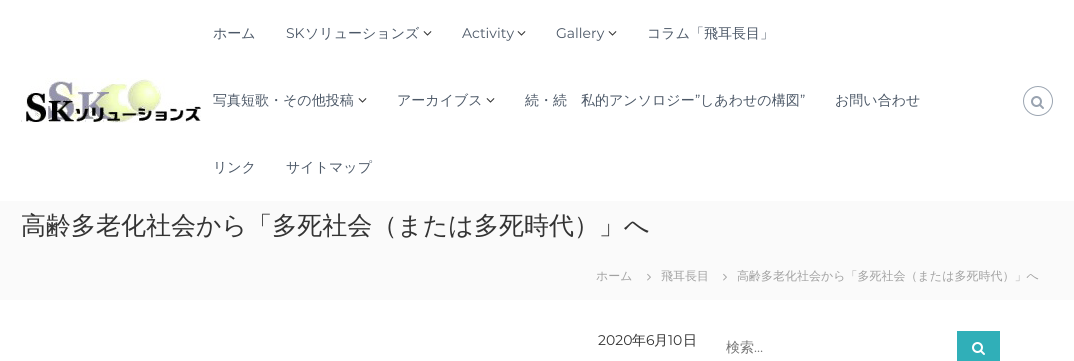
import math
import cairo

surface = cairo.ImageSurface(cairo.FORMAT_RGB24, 1074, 361)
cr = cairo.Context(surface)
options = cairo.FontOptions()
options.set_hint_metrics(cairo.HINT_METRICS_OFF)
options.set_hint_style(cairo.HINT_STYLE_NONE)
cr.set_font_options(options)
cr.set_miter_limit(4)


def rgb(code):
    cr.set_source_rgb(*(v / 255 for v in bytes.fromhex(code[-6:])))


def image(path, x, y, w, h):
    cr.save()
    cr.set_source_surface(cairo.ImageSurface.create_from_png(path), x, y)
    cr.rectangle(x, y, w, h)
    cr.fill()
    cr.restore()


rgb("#ffffff")
cr.paint()
image("img/1.png", 21, 78, 180, 45)
image("img/2.png", 423, 31, 9, 5)
image("img/2.png", 517, 31, 9, 5)
image("img/2.png", 608, 31, 9, 5)
image("img/2.png", 358, 98, 9, 5)
image("img/2.png", 486, 98, 9, 5)
cr.arc(1038, 101, 14.5, 0, 2 * math.pi)
rgb("#9ca6b2")
cr.set_line_width(1)
cr.stroke()
image("img/3.png", 1031, 96, 13, 13)
rgb("#fafafa")
cr.rectangle(0, 201, 1074, 99)
cr.fill()
image("img/4.png", 647, 273, 4, 8)
image("img/4.png", 723, 273, 4, 8)
rgb("#30afb8")
cr.rectangle(957, 331, 43, 30)
cr.fill()
image("img/5.png", 972, 342, 13, 13)
cr.select_font_face("WenQuanYi Zen Hei Medium")
cr.set_font_size(14)
rgb("#4c5867")
cr.move_to(213, 38)
cr.show_text("ホーム")
cr.select_font_face("Montserrat")
cr.move_to(286, 38)
cr.show_text("SK")
cr.select_font_face("WenQuanYi Zen Hei Medium")
cr.move_to(305, 38)
cr.show_text("ソリューションズ")
cr.select_font_face("Montserrat")
cr.move_to(462, 38)
cr.show_text("Activity")
cr.move_to(556, 38)
cr.show_text("Gallery")
cr.select_font_face("WenQuanYi Zen Hei Medium")
for x, y, s in [
    (647, 38, "コラム「飛耳長目」"),
    (213, 105, "写真短歌・その他投稿"),
    (397, 105, "アーカイブス"),
    (525, 105, "続・続　私的アンソロジー"),
]:
    cr.move_to(x, y)
    cr.show_text(s)
cr.select_font_face("Montserrat")
cr.move_to(695, 105)
cr.show_text("”")
cr.select_font_face("WenQuanYi Zen Hei Medium")
cr.move_to(700, 105)
cr.show_text("しあわせの構図")
cr.select_font_face("Montserrat")
cr.move_to(800, 105)
cr.show_text("”")
cr.select_font_face("WenQuanYi Zen Hei Medium")
for x, y, s in [
    (835, 105, "お問い合わせ"),
    (213, 172, "リンク"),
    (286, 172, "サイトマップ"),
]:
    cr.move_to(x, y)
    cr.show_text(s)
cr.set_font_size(25)
rgb("#333333")
cr.move_to(21, 234)
cr.show_text("高齢多老化社会から「多死社会（または多死時代）」へ")
cr.set_font_size(12)
rgb("#a1a1a1")
for x, y, s in [
    (596, 280, "ホーム"),
    (661, 280, "飛耳長目"),
    (737, 280, "高齢多老化社会から「多死社会（または多死時代）」へ"),
]:
    cr.move_to(x, y)
    cr.show_text(s)
cr.select_font_face("Montserrat")
cr.set_font_size(14)
rgb("#333333")
cr.move_to(598, 345)
cr.show_text("2020")
cr.select_font_face("WenQuanYi Zen Hei Medium")
cr.move_to(632, 345)
cr.show_text("年")
cr.select_font_face("Montserrat")
cr.move_to(646, 345)
cr.show_text("6")
cr.select_font_face("WenQuanYi Zen Hei Medium")
cr.move_to(654, 345)
cr.show_text("月")
cr.select_font_face("Montserrat")
cr.move_to(668, 345)
cr.show_text("10")
cr.select_font_face("WenQuanYi Zen Hei Medium")
cr.move_to(683, 345)
cr.show_text("日")
rgb("#757575")
cr.move_to(726, 352)
cr.show_text("検索")
cr.select_font_face("Montserrat")
cr.move_to(754, 352)
cr.show_text("…")
surface.write_to_png("page.png")
